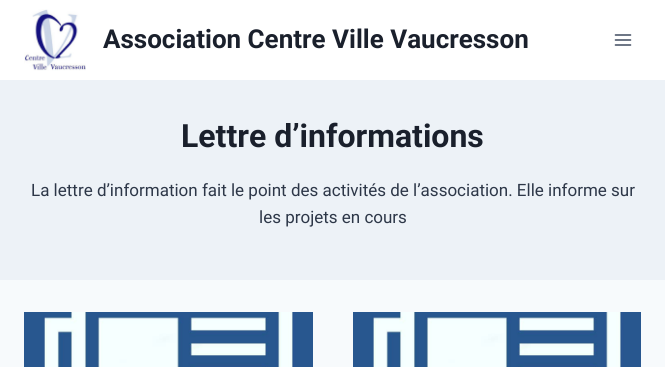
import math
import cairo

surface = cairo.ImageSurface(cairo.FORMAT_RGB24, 665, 367)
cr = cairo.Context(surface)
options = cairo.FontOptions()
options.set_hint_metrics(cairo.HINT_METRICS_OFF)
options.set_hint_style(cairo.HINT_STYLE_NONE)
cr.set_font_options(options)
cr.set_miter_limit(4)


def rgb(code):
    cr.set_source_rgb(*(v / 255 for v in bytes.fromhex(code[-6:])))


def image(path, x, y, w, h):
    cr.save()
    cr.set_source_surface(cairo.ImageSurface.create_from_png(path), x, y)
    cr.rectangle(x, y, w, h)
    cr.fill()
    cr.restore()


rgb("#f7fafc")
cr.paint()
rgb("#ffffff")
cr.rectangle(0, 0, 665, 80)
cr.fill()
image("img/1.png", 24, 9, 62, 62)
image("img/2.png", 614, 34, 18, 12)
rgb("#edf2f7")
cr.rectangle(0, 80, 665, 200)
cr.fill()
image("img/3.png", 24, 312, 289, 55)
image("img/4.png", 353, 312, 288, 55)
cr.select_font_face("Roboto", cairo.FONT_SLANT_NORMAL, cairo.FONT_WEIGHT_BOLD)
cr.set_font_size(26)
rgb("#1a202c")
cr.move_to(103, 48)
cr.show_text("Association Centre Ville Vaucresson")
cr.set_font_size(32)
cr.move_to(181, 147)
cr.show_text("Lettre d’informations")
cr.select_font_face("Roboto")
cr.set_font_size(17)
rgb("#2d3748")
cr.move_to(31, 196)
cr.show_text("La lettre d’information fait le point des activités de l’association. Elle informe sur")
cr.move_to(259, 223)
cr.show_text("les projets en cours")
surface.write_to_png("page.png")
